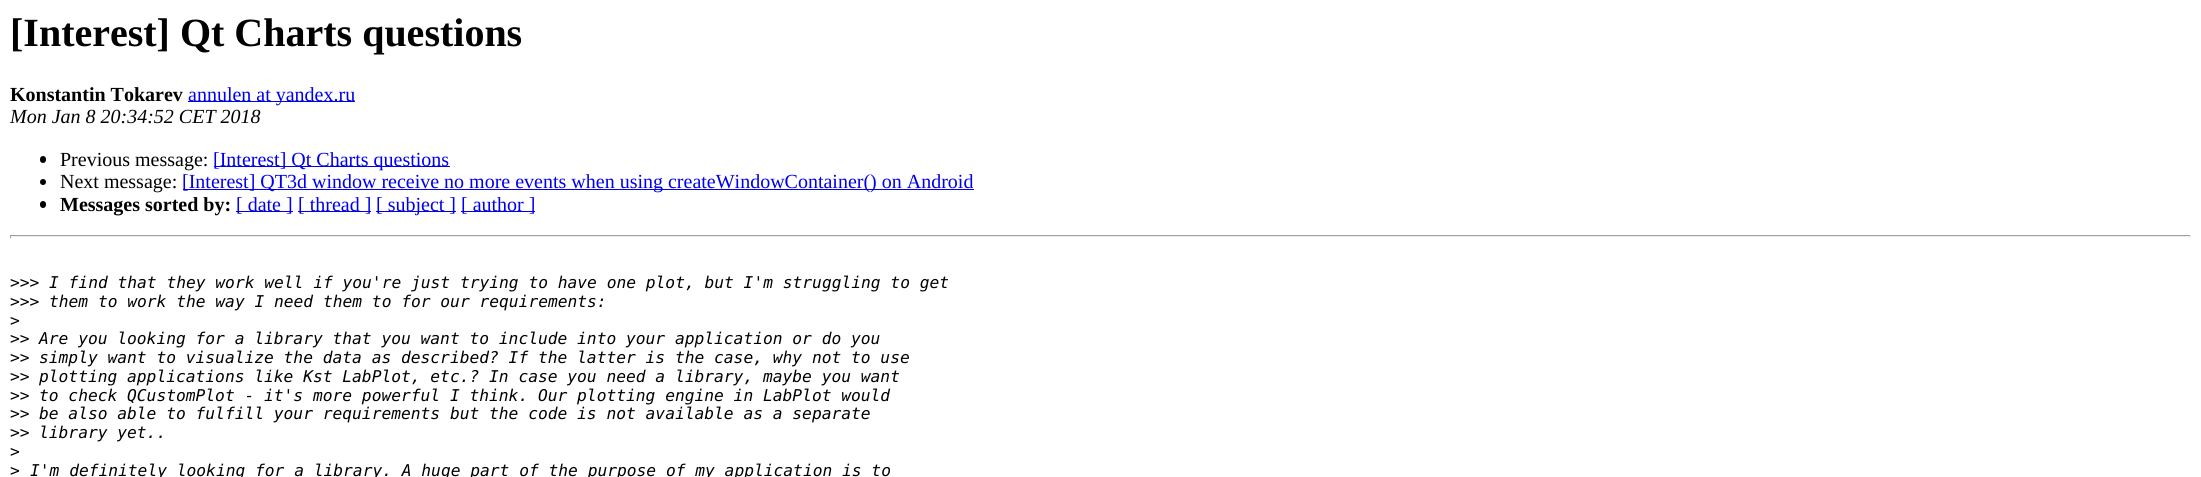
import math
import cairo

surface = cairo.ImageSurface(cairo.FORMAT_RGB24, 2201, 477)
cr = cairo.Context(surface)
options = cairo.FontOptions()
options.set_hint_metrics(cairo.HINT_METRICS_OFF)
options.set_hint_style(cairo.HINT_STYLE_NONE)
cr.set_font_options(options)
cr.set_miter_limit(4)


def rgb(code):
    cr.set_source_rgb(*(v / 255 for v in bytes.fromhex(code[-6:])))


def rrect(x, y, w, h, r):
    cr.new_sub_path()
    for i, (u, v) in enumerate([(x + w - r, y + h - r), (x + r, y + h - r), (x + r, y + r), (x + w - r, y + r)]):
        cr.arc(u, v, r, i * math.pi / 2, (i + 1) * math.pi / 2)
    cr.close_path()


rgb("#ffffff")
cr.paint()
rgb("#0000ee")
cr.rectangle(188, 101, 167, 1)
cr.fill()
rgb("#000000")
rrect(40, 156, 6, 7, 3)
cr.fill()
rgb("#0000ee")
cr.rectangle(214, 166, 236, 1)
cr.fill()
rgb("#000000")
cr.arc(43, 182, 3, 0, 2 * math.pi)
cr.fill()
rgb("#0000ee")
cr.rectangle(183, 189, 791, 1)
cr.fill()
rgb("#000000")
rrect(40, 201, 6, 7, 3)
cr.fill()
for x, y, w, h, color in [
    (236, 211, 57, 1, "#0000ee"),
    (298, 211, 73, 1, "#0000ee"),
    (376, 211, 80, 1, "#0000ee"),
    (461, 211, 74, 1, "#0000ee"),
    (10, 235, 2181, 1, "#9f9f9f"),
    (2190, 235, 1, 3, "#eeeeee"),
    (10, 236, 2181, 1, "#eeeeee"),
    (10, 235, 1, 3, "#9f9f9f"),
]:
    rgb(color)
    cr.rectangle(x, y, w, h)
    cr.fill()
cr.select_font_face("Liberation Serif", cairo.FONT_SLANT_NORMAL, cairo.FONT_WEIGHT_BOLD)
cr.set_font_size(40)
rgb("#000000")
cr.move_to(10, 46)
cr.show_text("[Interest] Qt Charts questions")
cr.set_font_size(20)
cr.move_to(10, 101)
cr.show_text("Konstantin Tokarev")
cr.select_font_face("Liberation Serif")
rgb("#0000ee")
cr.move_to(188, 101)
cr.show_text("annulen at yandex.ru")
cr.select_font_face("Liberation Serif", cairo.FONT_SLANT_ITALIC)
rgb("#000000")
cr.move_to(10, 123)
cr.show_text("Mon Jan 8 20:34:52 CET 2018")
cr.select_font_face("Liberation Serif")
cr.move_to(60, 166)
cr.show_text("Previous message:")
rgb("#0000ee")
cr.move_to(213, 166)
cr.show_text("[Interest] Qt Charts questions")
rgb("#000000")
cr.move_to(60, 188)
cr.show_text("Next message:")
rgb("#0000ee")
cr.move_to(182, 188)
cr.show_text("[Interest] QT3d window receive no more events when using createWindowContainer() on Android")
cr.select_font_face("Liberation Serif", cairo.FONT_SLANT_NORMAL, cairo.FONT_WEIGHT_BOLD)
rgb("#000000")
cr.move_to(60, 211)
cr.show_text("Messages sorted by:")
cr.select_font_face("Liberation Serif")
rgb("#0000ee")
for x, y, s in [
    (236, 211, "[ date ]"),
    (298, 211, "[ thread ]"),
    (376, 211, "[ subject ]"),
    (461, 211, "[ author ]"),
]:
    cr.move_to(x, y)
    cr.show_text(s)
cr.select_font_face("DejaVu Sans Mono")
cr.set_font_size(16.25)
rgb("#000000")
cr.move_to(10, 288)
cr.show_text(">>>")
cr.select_font_face("DejaVu Sans Mono", cairo.FONT_SLANT_ITALIC)
cr.move_to(49, 288)
cr.show_text("I find that they work well if you're just trying to have one plot, but I'm struggling to get")
cr.select_font_face("DejaVu Sans Mono")
cr.move_to(10, 307)
cr.show_text(">>>")
cr.select_font_face("DejaVu Sans Mono", cairo.FONT_SLANT_ITALIC)
cr.move_to(49, 307)
cr.show_text("them to work the way I need them to for our requirements:")
cr.select_font_face("DejaVu Sans Mono")
cr.move_to(10, 326)
cr.show_text(">")
cr.move_to(10, 344)
cr.show_text(">>")
cr.select_font_face("DejaVu Sans Mono", cairo.FONT_SLANT_ITALIC)
cr.move_to(39, 344)
cr.show_text("Are you looking for a library that you want to include into your application or do you")
cr.select_font_face("DejaVu Sans Mono")
cr.move_to(10, 363)
cr.show_text(">>")
cr.select_font_face("DejaVu Sans Mono", cairo.FONT_SLANT_ITALIC)
cr.move_to(39, 363)
cr.show_text("simply want to visualize the data as described? If the latter is the case, why not to use")
cr.select_font_face("DejaVu Sans Mono")
cr.move_to(10, 382)
cr.show_text(">>")
cr.select_font_face("DejaVu Sans Mono", cairo.FONT_SLANT_ITALIC)
cr.move_to(39, 382)
cr.show_text("plotting applications like Kst LabPlot, etc.? In case you need a library, maybe you want")
cr.select_font_face("DejaVu Sans Mono")
cr.move_to(10, 401)
cr.show_text(">>")
cr.select_font_face("DejaVu Sans Mono", cairo.FONT_SLANT_ITALIC)
cr.move_to(39, 401)
cr.show_text("to check QCustomPlot - it's more powerful I think. Our plotting engine in LabPlot would")
cr.select_font_face("DejaVu Sans Mono")
cr.move_to(10, 419)
cr.show_text(">>")
cr.select_font_face("DejaVu Sans Mono", cairo.FONT_SLANT_ITALIC)
cr.move_to(39, 419)
cr.show_text("be also able to fulfill your requirements but the code is not available as a separate")
cr.select_font_face("DejaVu Sans Mono")
cr.move_to(10, 438)
cr.show_text(">>")
cr.select_font_face("DejaVu Sans Mono", cairo.FONT_SLANT_ITALIC)
cr.move_to(39, 438)
cr.show_text("library yet..")
cr.select_font_face("DejaVu Sans Mono")
cr.move_to(10, 457)
cr.show_text(">")
cr.move_to(10, 476)
cr.show_text(">")
cr.select_font_face("DejaVu Sans Mono", cairo.FONT_SLANT_ITALIC)
cr.move_to(30, 476)
cr.show_text("I'm definitely looking for a library. A huge part of the purpose of my application is to")
surface.write_to_png("page.png")
